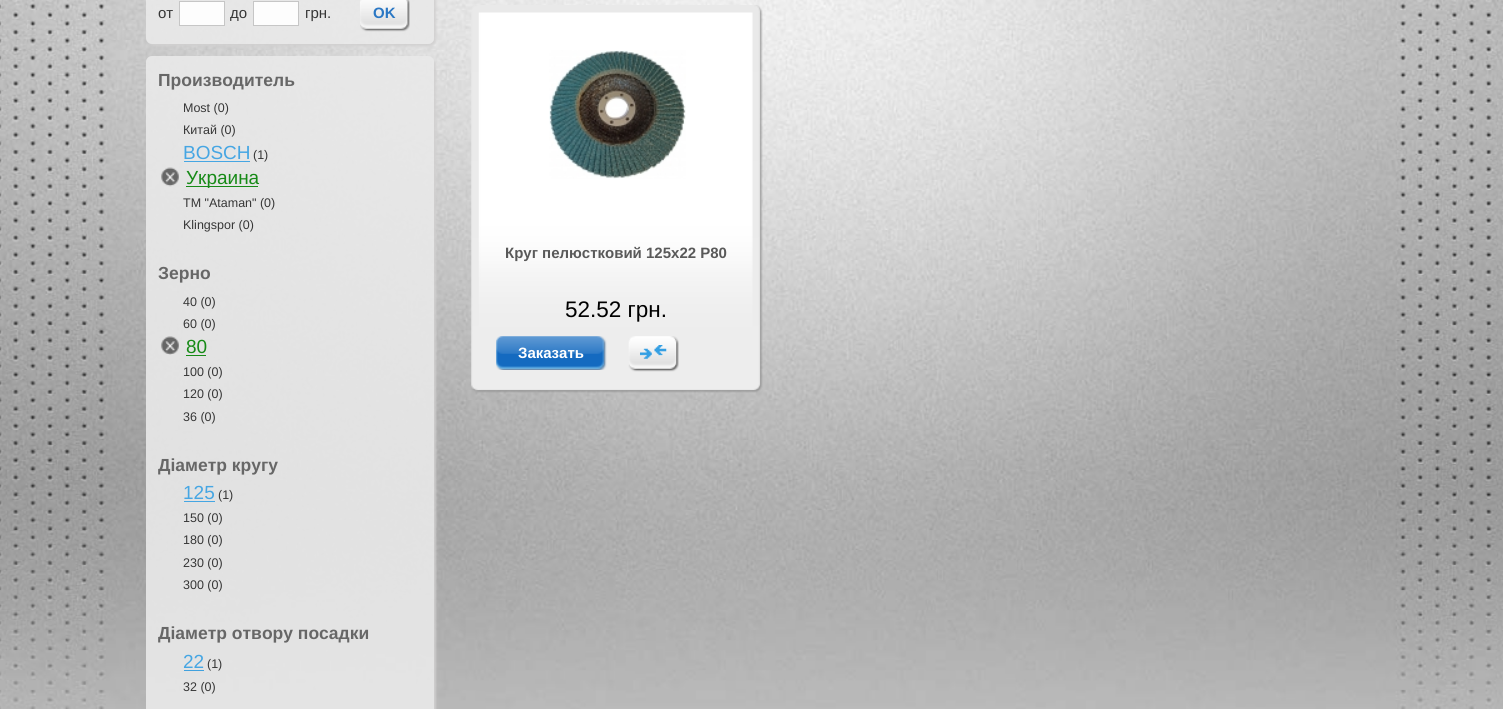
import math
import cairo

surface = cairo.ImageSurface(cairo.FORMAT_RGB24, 1503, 709)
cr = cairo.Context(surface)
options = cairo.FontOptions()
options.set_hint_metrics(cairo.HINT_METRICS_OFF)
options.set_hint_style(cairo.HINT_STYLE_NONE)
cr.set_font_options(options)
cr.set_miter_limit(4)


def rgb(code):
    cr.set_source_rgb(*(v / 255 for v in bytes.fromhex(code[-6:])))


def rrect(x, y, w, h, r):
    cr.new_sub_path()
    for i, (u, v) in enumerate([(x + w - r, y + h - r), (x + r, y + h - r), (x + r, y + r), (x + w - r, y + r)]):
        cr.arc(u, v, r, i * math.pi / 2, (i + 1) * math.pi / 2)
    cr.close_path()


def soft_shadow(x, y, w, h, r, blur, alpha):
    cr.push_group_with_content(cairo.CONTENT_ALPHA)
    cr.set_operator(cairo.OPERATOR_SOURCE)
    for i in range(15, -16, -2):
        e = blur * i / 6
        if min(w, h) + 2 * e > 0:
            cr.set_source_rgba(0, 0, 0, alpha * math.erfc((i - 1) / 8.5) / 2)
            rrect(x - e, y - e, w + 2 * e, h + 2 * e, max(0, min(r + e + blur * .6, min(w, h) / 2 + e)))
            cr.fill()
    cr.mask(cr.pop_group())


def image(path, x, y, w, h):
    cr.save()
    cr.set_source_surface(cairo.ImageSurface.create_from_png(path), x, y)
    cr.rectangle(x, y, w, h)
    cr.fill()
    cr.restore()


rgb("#ffffff")
cr.paint()
image("img/1.png", 0, 0, 1503, 709)
cr.save()
cr.set_fill_rule(cairo.FILL_RULE_EVEN_ODD)
cr.new_path()
cr.move_to(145, 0)
cr.line_to(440, 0)
cr.line_to(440, 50)
cr.line_to(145, 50)
cr.close_path()
cr.move_to(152, -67)
cr.line_to(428, -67)
cr.curve_to(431.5, -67, 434, -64.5, 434, -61)
cr.line_to(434, 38)
cr.curve_to(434, 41.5, 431.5, 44, 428, 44)
cr.line_to(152, 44)
cr.curve_to(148.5, 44, 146, 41.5, 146, 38)
cr.line_to(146, -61)
cr.curve_to(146, -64.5, 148.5, -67, 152, -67)
cr.close_path()
cr.clip()
rgb("#d1d0d0")
soft_shadow(149, -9, 287, 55, 6, 1, 0.9)
cr.restore()
cr.set_source_rgba(0.914, 0.914, 0.914, 0.9)
rrect(146, -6, 288, 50, 6)
cr.fill()
rgb("#fdfdfd")
cr.rectangle(179.5, 1.5, 45, 24)
cr.fill_preserve()
rgb("#c6c6c6")
cr.set_line_width(1)
cr.stroke()
rgb("#fdfdfd")
cr.rectangle(253.5, 1.5, 45, 24)
cr.fill_preserve()
rgb("#c6c6c6")
cr.stroke()
image("img/2.png", 360, 0, 50, 32)
cr.save()
cr.set_fill_rule(cairo.FILL_RULE_EVEN_ODD)
cr.new_path()
cr.move_to(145, 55)
cr.line_to(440, 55)
cr.line_to(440, 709)
cr.line_to(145, 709)
cr.close_path()
cr.move_to(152, 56)
cr.line_to(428, 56)
cr.curve_to(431.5, 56, 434, 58.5, 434, 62)
cr.line_to(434, 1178)
cr.curve_to(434, 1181.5, 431.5, 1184, 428, 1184)
cr.line_to(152, 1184)
cr.curve_to(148.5, 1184, 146, 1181.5, 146, 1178)
cr.line_to(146, 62)
cr.curve_to(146, 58.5, 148.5, 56, 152, 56)
cr.close_path()
cr.clip()
rgb("#d1d0d0")
soft_shadow(149, 59, 287, 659, 6, 1, 0.9)
cr.restore()
cr.set_source_rgba(0.914, 0.914, 0.914, 0.9)
rrect(146, 56, 288, 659, 6)
cr.fill()
rgb("#46a6e3")
cr.rectangle(184, 161, 66, 1)
cr.fill()
image("img/3.png", 161, 167, 18, 20)
rgb("#178a17")
cr.rectangle(186, 186, 72, 1)
cr.fill()
image("img/4.png", 161, 336, 18, 19)
for x, y, w, h, color in [
    (186, 355, 20, 1, "#178a17"),
    (184, 501, 31, 1, "#45a6e3"),
    (184, 670, 20, 1, "#40a1de"),
]:
    rgb(color)
    cr.rectangle(x, y, w, h)
    cr.fill()
image("img/5.png", 471, 5, 292, 388)
image("img/6.png", 549, 50, 137, 129)
image("img/7.png", 496, 336, 111, 34)
image("img/8.png", 628, 336, 51, 36)
image("img/9.png", 640, 345, 27, 14)
cr.select_font_face("Liberation Sans")
cr.set_font_size(15)
rgb("#363636")
for x, y, s in [
    (158, 18, "от"),
    (230, 18, "до"),
    (305, 18, "грн."),
]:
    cr.move_to(x, y)
    cr.show_text(s)
cr.select_font_face("Liberation Sans", cairo.FONT_SLANT_NORMAL, cairo.FONT_WEIGHT_BOLD)
rgb("#2a77c4")
cr.move_to(373, 18)
cr.show_text("OK")
cr.set_font_size(17.5)
rgb("#676767")
cr.move_to(158, 86)
cr.show_text("Производитель")
cr.select_font_face("Liberation Sans")
cr.set_font_size(12.5)
rgb("#363636")
cr.move_to(183, 112)
cr.show_text("Most (0)")
cr.move_to(183, 134)
cr.show_text("Китай (0)")
cr.set_font_size(19)
rgb("#46a6e3")
cr.move_to(183, 159)
cr.show_text("BOSCH")
cr.set_font_size(12.5)
rgb("#363636")
cr.move_to(253, 159)
cr.show_text("(1)")
cr.set_font_size(19)
rgb("#178a17")
cr.move_to(186, 184)
cr.show_text("Украина")
cr.set_font_size(12.5)
rgb("#363636")
cr.move_to(183, 207)
cr.show_text("ТМ \"Ataman\" (0)")
cr.move_to(183, 229)
cr.show_text("Klingspor (0)")
cr.select_font_face("Liberation Sans", cairo.FONT_SLANT_NORMAL, cairo.FONT_WEIGHT_BOLD)
cr.set_font_size(17.5)
rgb("#676767")
cr.move_to(158, 279)
cr.show_text("Зерно")
cr.select_font_face("Liberation Sans")
cr.set_font_size(12.5)
rgb("#363636")
cr.move_to(183, 306)
cr.show_text("40 (0)")
cr.move_to(183, 328)
cr.show_text("60 (0)")
cr.set_font_size(19)
rgb("#178a17")
cr.move_to(186, 353)
cr.show_text("80")
cr.set_font_size(12.5)
rgb("#363636")
for x, y, s in [
    (183, 376, "100 (0)"),
    (183, 398, "120 (0)"),
    (183, 421, "36 (0)"),
]:
    cr.move_to(x, y)
    cr.show_text(s)
cr.select_font_face("Liberation Sans", cairo.FONT_SLANT_NORMAL, cairo.FONT_WEIGHT_BOLD)
cr.set_font_size(17.5)
rgb("#676767")
cr.move_to(158, 471)
cr.show_text("Діаметр кругу")
cr.select_font_face("Liberation Sans")
cr.set_font_size(19)
rgb("#46a6e3")
cr.move_to(183, 499)
cr.show_text("125")
cr.set_font_size(12.5)
rgb("#363636")
for x, y, s in [
    (218, 499, "(1)"),
    (183, 522, "150 (0)"),
    (183, 544, "180 (0)"),
    (183, 567, "230 (0)"),
    (183, 589, "300 (0)"),
]:
    cr.move_to(x, y)
    cr.show_text(s)
cr.select_font_face("Liberation Sans", cairo.FONT_SLANT_NORMAL, cairo.FONT_WEIGHT_BOLD)
cr.set_font_size(17.5)
rgb("#676767")
cr.move_to(158, 639)
cr.show_text("Діаметр отвору посадки")
cr.select_font_face("Liberation Sans")
cr.set_font_size(19)
rgb("#46a6e3")
cr.move_to(183, 668)
cr.show_text("22")
cr.set_font_size(12.5)
rgb("#363636")
cr.move_to(207, 668)
cr.show_text("(1)")
cr.move_to(183, 691)
cr.show_text("32 (0)")
cr.select_font_face("Liberation Sans", cairo.FONT_SLANT_NORMAL, cairo.FONT_WEIGHT_BOLD)
cr.set_font_size(15)
rgb("#595959")
cr.move_to(505, 258)
cr.show_text("Круг пелюстковий 125х22 Р80")
cr.select_font_face("Liberation Sans")
cr.set_font_size(22.5)
rgb("#000000")
cr.move_to(565, 317)
cr.show_text("52.52 грн.")
cr.select_font_face("Liberation Sans", cairo.FONT_SLANT_NORMAL, cairo.FONT_WEIGHT_BOLD)
cr.set_font_size(15)
rgb("#ffffff")
cr.move_to(518, 358)
cr.show_text("Заказать")
surface.write_to_png("page.png")
